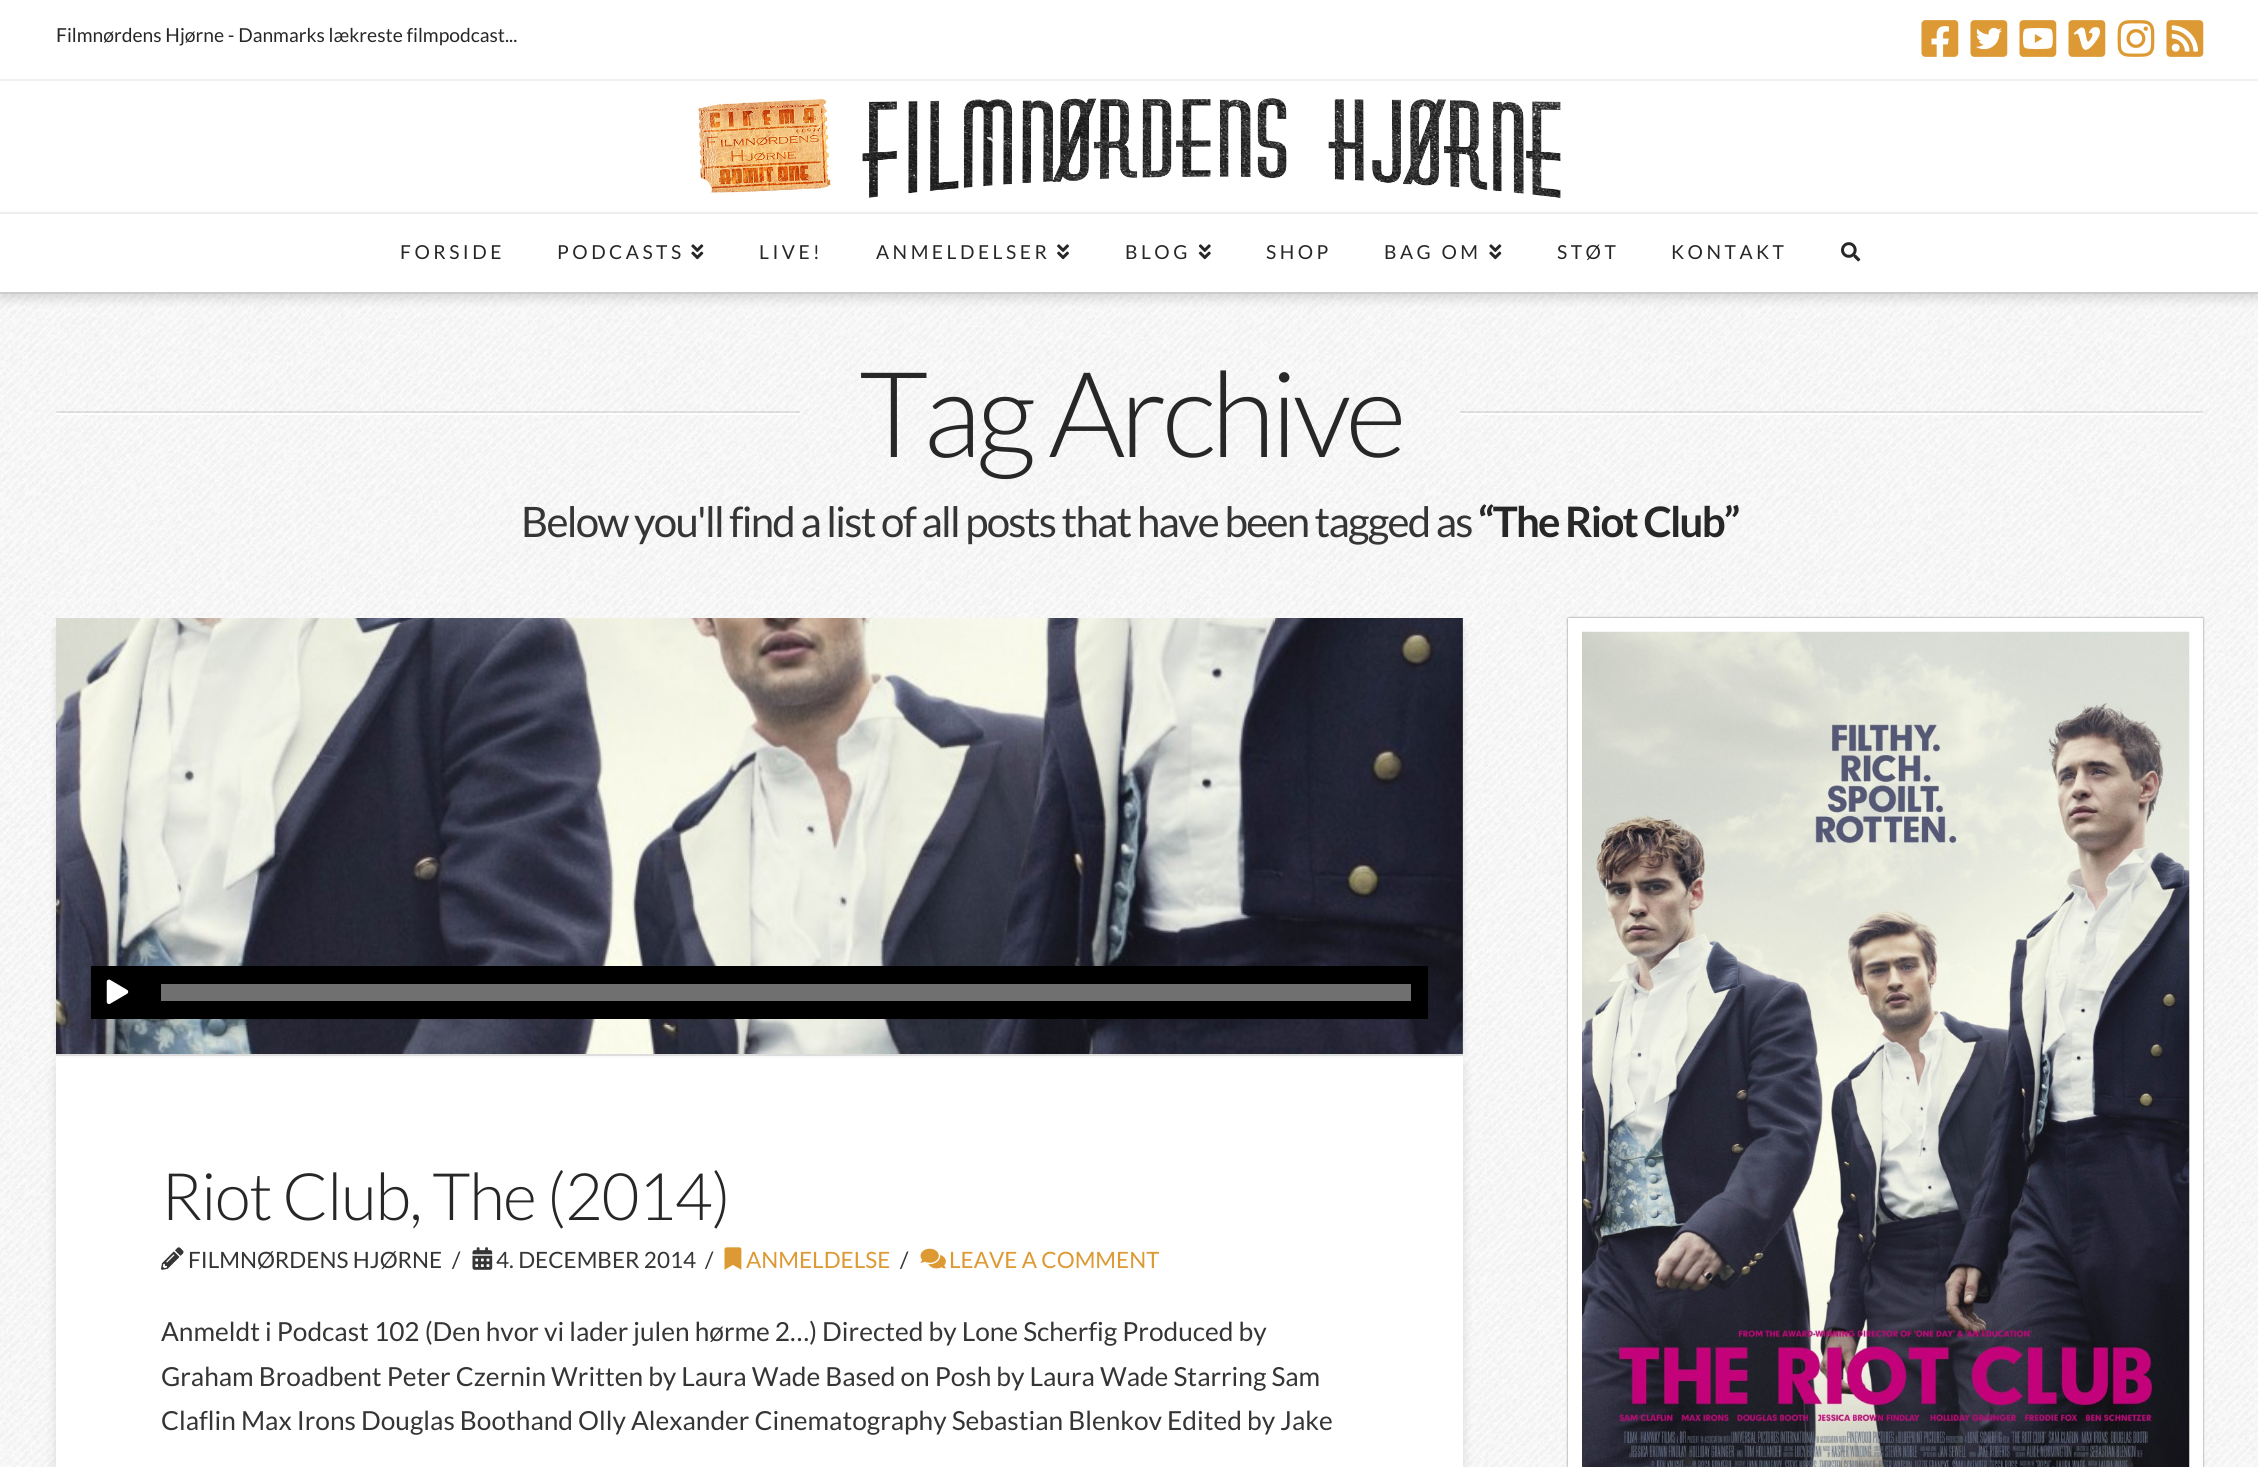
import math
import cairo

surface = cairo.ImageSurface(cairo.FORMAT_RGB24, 2258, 1467)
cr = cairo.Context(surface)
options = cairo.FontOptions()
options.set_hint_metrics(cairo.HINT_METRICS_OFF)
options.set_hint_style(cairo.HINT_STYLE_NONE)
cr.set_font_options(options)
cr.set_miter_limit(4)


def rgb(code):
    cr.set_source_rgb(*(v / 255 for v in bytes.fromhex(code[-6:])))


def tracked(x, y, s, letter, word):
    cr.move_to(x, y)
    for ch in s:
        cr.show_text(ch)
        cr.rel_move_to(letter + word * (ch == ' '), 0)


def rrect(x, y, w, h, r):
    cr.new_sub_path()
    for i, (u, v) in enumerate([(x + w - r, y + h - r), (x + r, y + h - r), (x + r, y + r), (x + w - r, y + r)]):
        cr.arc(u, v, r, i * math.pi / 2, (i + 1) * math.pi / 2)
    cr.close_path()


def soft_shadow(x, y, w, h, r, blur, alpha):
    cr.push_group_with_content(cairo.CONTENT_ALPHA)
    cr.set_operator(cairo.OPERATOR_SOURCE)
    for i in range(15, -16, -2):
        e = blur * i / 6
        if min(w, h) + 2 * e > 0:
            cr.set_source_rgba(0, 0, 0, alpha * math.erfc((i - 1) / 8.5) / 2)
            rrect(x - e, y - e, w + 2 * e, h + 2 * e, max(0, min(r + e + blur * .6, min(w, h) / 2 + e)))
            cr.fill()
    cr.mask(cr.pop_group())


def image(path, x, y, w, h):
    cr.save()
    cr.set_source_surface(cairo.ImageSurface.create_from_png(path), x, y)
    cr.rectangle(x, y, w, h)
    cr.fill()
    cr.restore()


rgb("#ffffff")
cr.paint()
image("img/1.png", 0, 294, 2258, 1173)
rgb("#f2f2f2")
cr.rectangle(0, 79, 2258, 2)
cr.fill()
image("img/2.png", 1921, 20, 38, 37)
image("img/3.png", 1970, 20, 38, 37)
image("img/4.png", 2019, 20, 38, 37)
image("img/5.png", 2068, 20, 38, 37)
image("img/6.png", 2117, 20, 38, 37)
image("img/7.png", 2166, 20, 38, 37)
cr.rectangle(0, 212, 2258, 2)
cr.fill()
image("img/8.png", 698, 98, 863, 100)
rgb("#000000")
soft_shadow(0, 219, 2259, 80, 0, 5, 0.13)
rgb("#ffffff")
cr.rectangle(0, 214, 2258, 78)
cr.fill()
rgb("#cccccc")
cr.rectangle(0, 292, 2258, 2)
cr.fill()
image("img/9.png", 691, 244, 13, 16)
image("img/10.png", 1057, 244, 12, 16)
image("img/11.png", 1198, 244, 13, 16)
image("img/9.png", 1489, 244, 13, 16)
image("img/12.png", 1841, 242, 20, 20)
cr.set_source_rgba(1, 1, 1, 0.8)
cr.rectangle(56, 413, 744, 2)
cr.fill()
cr.set_source_rgba(0, 0, 0, 0.1)
cr.rectangle(56, 411, 744, 2)
cr.fill()
cr.set_source_rgba(1, 1, 1, 0.8)
cr.rectangle(1460, 413, 743, 2)
cr.fill()
cr.set_source_rgba(0, 0, 0, 0.1)
cr.rectangle(1460, 411, 743, 2)
cr.fill()
rgb("#000000")
soft_shadow(56, 1061, 1407, 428, 7, 5, 0.13)
rgb("#ffffff")
cr.rectangle(56, 1056, 1407, 411)
cr.fill()
rgb("#000000")
soft_shadow(56, 628, 1393, 424, 0, 3.5, 0.13)
soft_shadow(70, 628, 1393, 424, 0, 3.5, 0.13)
rgb("#dddddd")
cr.rectangle(56, 1054, 1407, 2)
cr.fill()
image("img/13.png", 56, 618, 1407, 436)
rgb("#000000")
cr.rectangle(91, 966, 1337, 53)
cr.fill()
image("img/14.png", 106, 979, 23, 25)
rgb("#707070")
cr.rectangle(161, 984, 1250, 17)
cr.fill()
image("img/15.png", 161, 1247, 23, 23)
image("img/16.png", 472, 1247, 21, 23)
image("img/17.png", 724, 1247, 18, 23)
image("img/18.png", 920, 1248, 26, 21)
rgb("#777777")
soft_shadow(1568, 618, 635, 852, 0, 1, 1)
cr.rectangle(1575, 625, 621, 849)
rgb("#ffffff")
cr.set_line_width(14)
cr.stroke()
image("img/19.png", 1582, 631, 608, 836)
cr.select_font_face("Lato")
cr.set_font_size(19.25)
rgb("#272727")
cr.move_to(56, 42)
cr.show_text("Filmnørdens Hjørne - Danmarks lækreste filmpodcast...")
for x, y, s in [
    (400, 259, "FORSIDE"),
    (557, 259, "PODCASTS"),
    (759, 259, "LIVE!"),
    (876, 259, "ANMELDELSER"),
    (1125, 259, "BLOG"),
    (1266, 259, "SHOP"),
    (1384, 259, "BAG OM"),
    (1557, 259, "STØT"),
    (1671, 259, "KONTAKT"),
]:
    tracked(x, y, s, 3.5, 0)
cr.select_font_face("Lato Light")
cr.set_font_size(119)
tracked(859, 457, "Tag Archive", -5.25, 0)
cr.select_font_face("Lato")
cr.set_font_size(42)
rgb("#353535")
tracked(521, 537, "Below you'll find a list of all posts that have been tagged as", -1.75, 0)
cr.select_font_face("Lato", cairo.FONT_SLANT_NORMAL, cairo.FONT_WEIGHT_BOLD)
rgb("#272727")
tracked(1478, 537, "“The Riot Club”", -1.75, 0)
cr.select_font_face("Lato Light")
cr.set_font_size(65.5)
tracked(161, 1220, "Riot Club, The (2014)", -1.4, 0)
cr.select_font_face("Lato")
cr.set_font_size(22.5)
rgb("#353535")
for x, y, s in [
    (188, 1268, "FILMNØRDENS HJØRNE"),
    (452, 1268, "/"),
    (496, 1268, "4. DECEMBER 2014"),
    (705, 1268, "/"),
]:
    cr.move_to(x, y)
    cr.show_text(s)
rgb("#dd9933")
cr.move_to(746, 1268)
cr.show_text("ANMELDELSE")
rgb("#353535")
cr.move_to(900, 1268)
cr.show_text("/")
rgb("#dd9933")
cr.move_to(949, 1268)
cr.show_text("LEAVE A COMMENT")
cr.set_font_size(26.25)
rgb("#353535")
for x, y, s in [
    (161, 1341, "Anmeldt i Podcast 102 (Den hvor vi lader julen hørme 2…) Directed by Lone Scherfig Produced by"),
    (161, 1386, "Graham Broadbent Peter Czernin Written by Laura Wade Based on Posh by Laura Wade Starring Sam"),
    (161, 1430, "Claflin Max Irons Douglas Boothand Olly Alexander Cinematography Sebastian Blenkov Edited by Jake"),
]:
    cr.move_to(x, y)
    cr.show_text(s)
surface.write_to_png("page.png")
